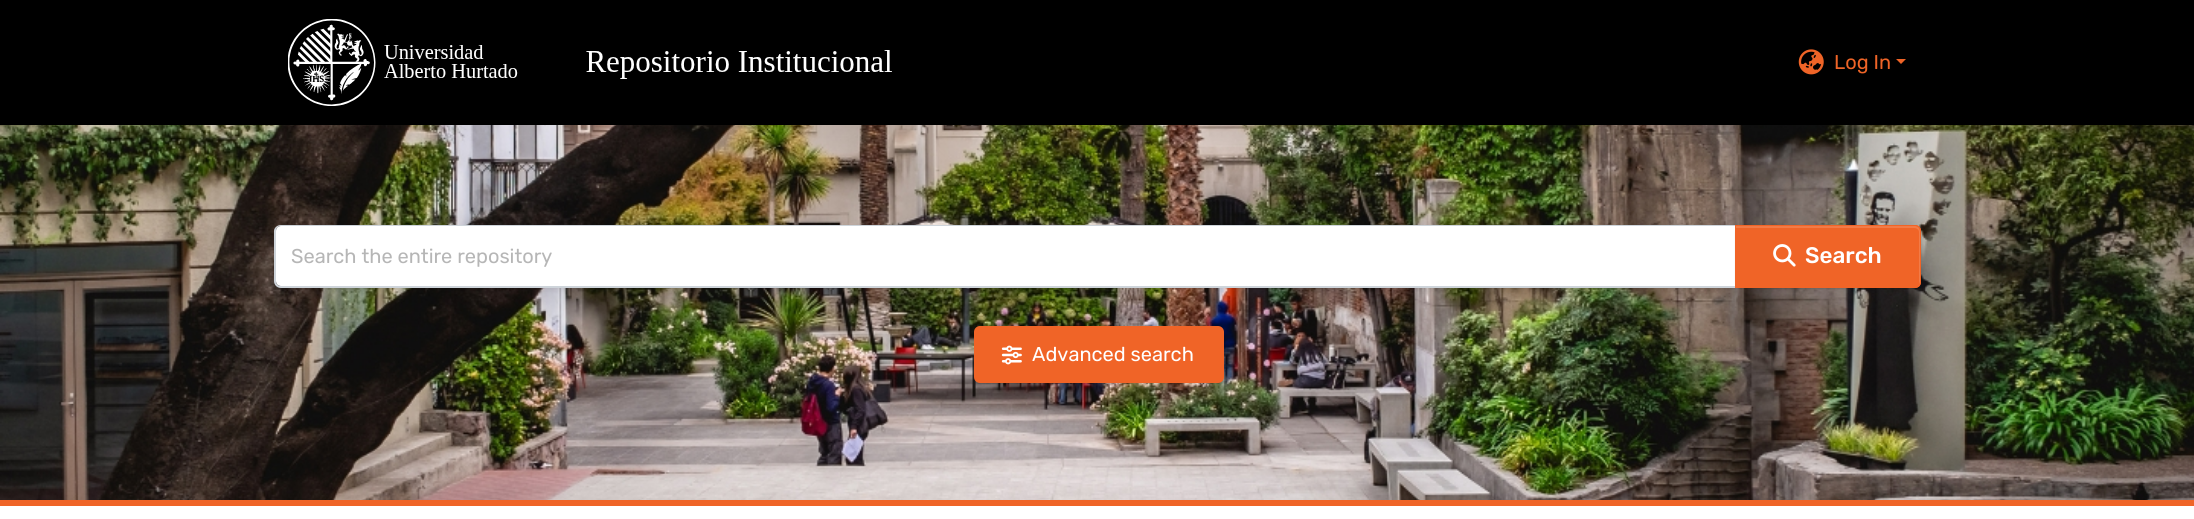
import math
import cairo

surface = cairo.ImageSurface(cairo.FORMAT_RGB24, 2194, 519)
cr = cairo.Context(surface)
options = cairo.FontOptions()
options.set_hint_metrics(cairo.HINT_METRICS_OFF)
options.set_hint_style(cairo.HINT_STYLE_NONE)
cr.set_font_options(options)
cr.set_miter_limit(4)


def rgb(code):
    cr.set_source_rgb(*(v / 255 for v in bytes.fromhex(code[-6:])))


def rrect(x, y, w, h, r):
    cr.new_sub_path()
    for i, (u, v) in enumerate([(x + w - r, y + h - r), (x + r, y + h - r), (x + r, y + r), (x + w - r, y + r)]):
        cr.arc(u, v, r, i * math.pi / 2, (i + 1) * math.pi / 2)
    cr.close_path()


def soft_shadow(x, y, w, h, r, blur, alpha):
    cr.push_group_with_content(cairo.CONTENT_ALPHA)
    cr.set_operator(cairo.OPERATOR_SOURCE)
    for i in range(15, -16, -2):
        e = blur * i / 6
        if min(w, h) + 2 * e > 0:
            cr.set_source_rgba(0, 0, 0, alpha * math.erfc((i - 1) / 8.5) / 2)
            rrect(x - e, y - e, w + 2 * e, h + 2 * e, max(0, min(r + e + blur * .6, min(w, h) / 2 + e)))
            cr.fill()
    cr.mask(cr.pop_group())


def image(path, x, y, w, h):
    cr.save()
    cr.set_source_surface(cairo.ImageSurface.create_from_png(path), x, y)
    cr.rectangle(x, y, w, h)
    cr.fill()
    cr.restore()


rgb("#ffffff")
cr.paint()
rgb("#ef6427")
cr.rectangle(0, 500, 2194, 6)
cr.fill()
rgb("#000000")
cr.rectangle(0, 0, 2194, 125)
cr.fill()
image("img/1.png", 288, 19, 604, 87)
image("img/2.png", 1798, 49, 26, 26)
rgb("#ef6427")
cr.new_path()
cr.move_to(1896, 59)
cr.line_to(1906, 59)
cr.line_to(1901, 64)
cr.close_path()
cr.fill()
image("img/3.png", 0, 125, 2194, 375)
rgb("#000000")
soft_shadow(275, 228, 1646, 62, 0, 2.5, 0.07)
rgb("#ffffff")
cr.new_path()
cr.move_to(281, 226)
cr.line_to(1736, 226)
cr.line_to(1736, 286)
cr.line_to(281, 286)
cr.curve_to(278, 286, 276, 284, 276, 281)
cr.line_to(276, 231)
cr.curve_to(276, 228, 278, 226, 281, 226)
cr.close_path()
cr.fill()
rgb("#ced4da")
cr.set_fill_rule(cairo.FILL_RULE_EVEN_ODD)
cr.new_path()
cr.move_to(281, 225)
cr.line_to(1736, 225)
cr.line_to(1736, 288)
cr.line_to(281, 288)
cr.curve_to(277, 288, 274, 285, 274, 281)
cr.line_to(274, 231)
cr.curve_to(274, 228, 277, 225, 281, 225)
cr.close_path()
cr.move_to(281, 226)
cr.line_to(1736, 226)
cr.line_to(1736, 286)
cr.line_to(281, 286)
cr.curve_to(278, 286, 276, 284, 276, 281)
cr.line_to(276, 231)
cr.curve_to(276, 228, 278, 226, 281, 226)
cr.close_path()
cr.fill()
rgb("#000000")
soft_shadow(1735, 226, 186, 63, 6, 0.5, 0.07)
rgb("#f06427")
cr.new_path()
cr.move_to(1735, 225)
cr.line_to(1915, 225)
cr.curve_to(1918.5, 225, 1921, 227.5, 1921, 231)
cr.line_to(1921, 282)
cr.curve_to(1921, 285.5, 1918.5, 288, 1915, 288)
cr.line_to(1735, 288)
cr.close_path()
cr.fill()
rgb("#f27b47")
cr.set_fill_rule(cairo.FILL_RULE_WINDING)
cr.new_path()
cr.move_to(1736, 228)
cr.line_to(1914, 228)
cr.curve_to(1917, 228, 1919, 230, 1919, 232)
cr.line_to(1919, 282)
cr.line_to(1919, 285)
cr.curve_to(1919, 284, 1920, 282, 1920, 281)
cr.line_to(1920, 231)
cr.curve_to(1920, 228, 1918, 226, 1915, 226)
cr.line_to(1736, 226)
cr.close_path()
cr.fill()
cr.new_path()
cr.move_to(1735.5, 225.5)
cr.line_to(1915, 225.5)
cr.curve_to(1918, 225.5, 1920.5, 228, 1920.5, 231)
cr.line_to(1920.5, 282)
cr.curve_to(1920.5, 285, 1918, 287.5, 1915, 287.5)
cr.line_to(1735.5, 287.5)
cr.close_path()
rgb("#f06427")
cr.set_line_width(1)
cr.stroke()
image("img/4.png", 1773, 244, 23, 23)
rgb("#000000")
soft_shadow(974, 329, 250, 56, 6, 3, 0.1)
rgb("#f06427")
rrect(974, 326, 250, 57, 6)
cr.fill()
image("img/5.png", 1001, 345, 21, 20)
cr.select_font_face("Rubik")
cr.set_font_size(20)
rgb("#ef6427")
cr.move_to(1834, 69)
cr.show_text("Log In")
rgb("#b6b6b6")
cr.move_to(291, 263)
cr.show_text("Search the entire repository")
cr.select_font_face("Rubik Medium")
cr.set_font_size(22.5)
rgb("#ffffff")
cr.move_to(1805, 263)
cr.show_text("Search")
cr.select_font_face("Rubik")
cr.set_font_size(20)
cr.move_to(1032, 361)
cr.show_text("Advanced search")
surface.write_to_png("page.png")
